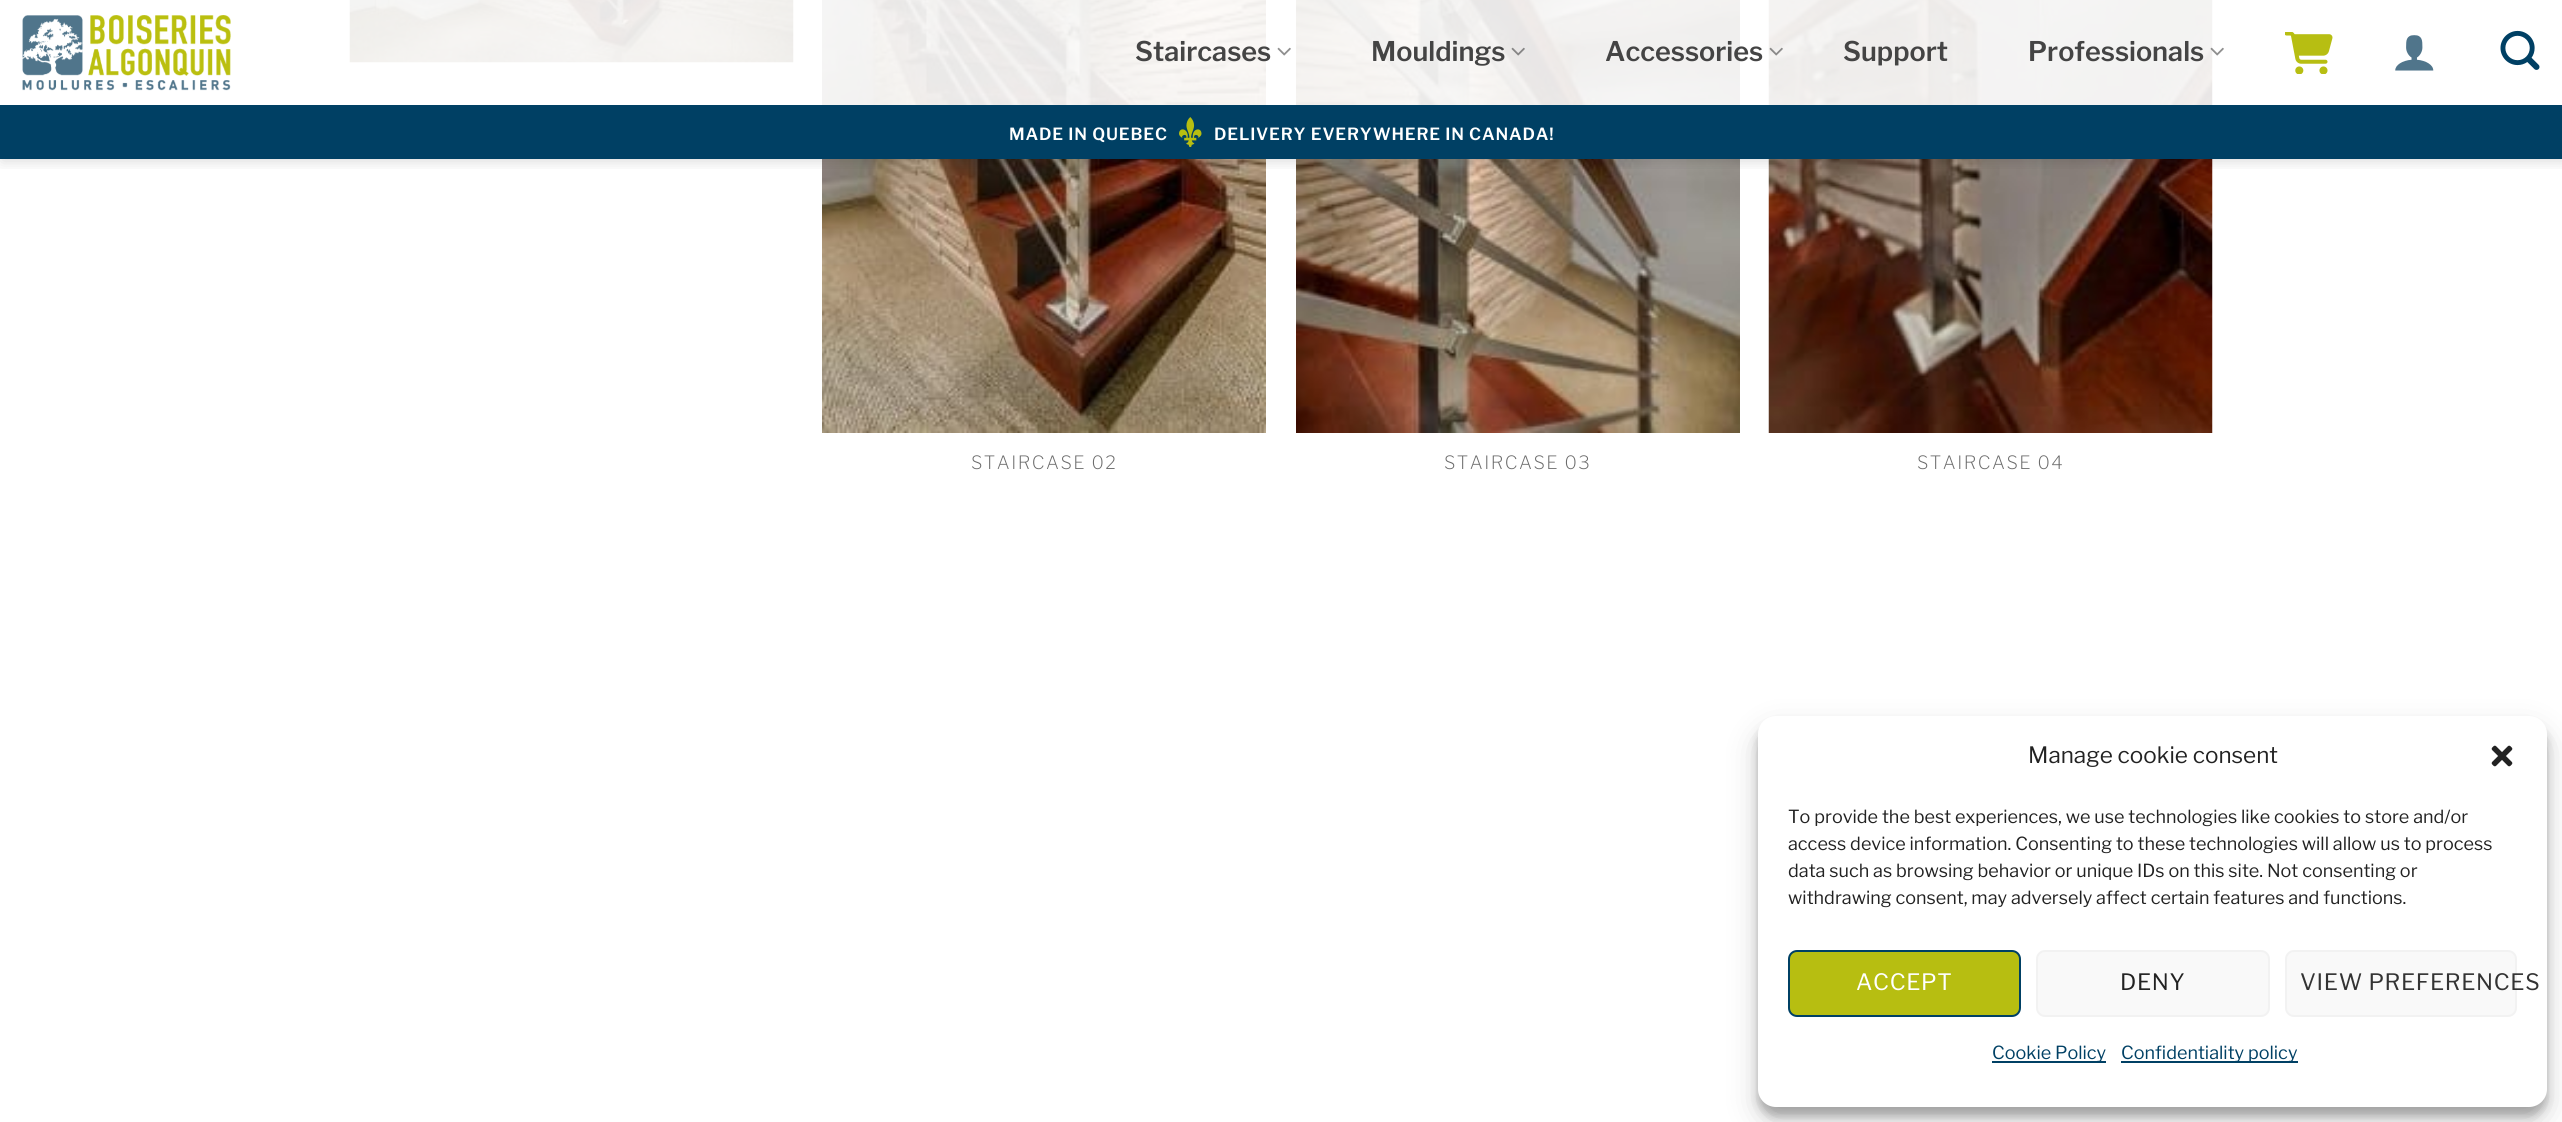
import math
import cairo

surface = cairo.ImageSurface(cairo.FORMAT_RGB24, 2562, 1122)
cr = cairo.Context(surface)
options = cairo.FontOptions()
options.set_hint_metrics(cairo.HINT_METRICS_OFF)
options.set_hint_style(cairo.HINT_STYLE_NONE)
cr.set_font_options(options)
cr.set_miter_limit(4)


def rgb(code):
    cr.set_source_rgb(*(v / 255 for v in bytes.fromhex(code[-6:])))


def tracked(x, y, s, letter, word):
    cr.move_to(x, y)
    for ch in s:
        cr.show_text(ch)
        cr.rel_move_to(letter + word * (ch == ' '), 0)


def rrect(x, y, w, h, r):
    cr.new_sub_path()
    for i, (u, v) in enumerate([(x + w - r, y + h - r), (x + r, y + h - r), (x + r, y + r), (x + w - r, y + r)]):
        cr.arc(u, v, r, i * math.pi / 2, (i + 1) * math.pi / 2)
    cr.close_path()


def soft_shadow(x, y, w, h, r, blur, alpha):
    cr.push_group_with_content(cairo.CONTENT_ALPHA)
    cr.set_operator(cairo.OPERATOR_SOURCE)
    for i in range(15, -16, -2):
        e = blur * i / 6
        if min(w, h) + 2 * e > 0:
            cr.set_source_rgba(0, 0, 0, alpha * math.erfc((i - 1) / 8.5) / 2)
            rrect(x - e, y - e, w + 2 * e, h + 2 * e, max(0, min(r + e + blur * .6, min(w, h) / 2 + e)))
            cr.fill()
    cr.mask(cr.pop_group())


def image(path, x, y, w, h):
    cr.save()
    cr.set_source_surface(cairo.ImageSurface.create_from_png(path), x, y)
    cr.rectangle(x, y, w, h)
    cr.fill()
    cr.restore()


rgb("#ffffff")
cr.paint()
image("img/10.png", 349, 0, 445, 63)
image("img/11.png", 822, 0, 444, 433)
image("img/12.png", 1296, 0, 444, 433)
image("img/13.png", 1768, 0, 445, 433)
cr.save()
cr.rectangle(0, 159, 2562, 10)
cr.clip()
rgb("#000000")
soft_shadow(2, 2, 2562, 159, 0, 7.5, 0.15)
cr.restore()
cr.set_source_rgba(1, 1, 1, 0.9)
cr.rectangle(349, 0, 1864, 105)
cr.fill()
image("img/1.png", 22, 15, 209, 76)
image("img/2.png", 1277, 47, 14, 9)
image("img/3.png", 1511, 47, 14, 9)
image("img/4.png", 1769, 47, 14, 9)
image("img/5.png", 2210, 47, 14, 9)
image("img/6.png", 2285, 32, 48, 42)
image("img/7.png", 2395, 35, 39, 36)
image("img/8.png", 2500, 30, 40, 40)
rgb("#004064")
cr.rectangle(0, 105, 2562, 54)
cr.fill()
image("img/9.png", 1179, 117, 23, 30)
rgb("#000000")
soft_shadow(1758, 725, 789, 391, 18, 4.5, 0.23)
soft_shadow(1758, 731, 789, 391, 18, 15, 0.19)
rgb("#ffffff")
rrect(1758, 716, 789, 391, 18)
cr.fill()
image("img/14.png", 2491, 745, 22, 22)
rgb("#b7be11")
rrect(1789, 951, 231, 65, 8)
cr.fill_preserve()
rgb("#004064")
cr.stroke()
rgb("#f9f9f9")
rrect(2037, 951, 232, 65, 8)
cr.fill_preserve()
rgb("#f2f2f2")
cr.stroke()
rgb("#f9f9f9")
rrect(2286, 951, 230, 65, 8)
cr.fill_preserve()
rgb("#f2f2f2")
cr.stroke()
rgb("#004064")
cr.rectangle(1992, 1061, 114, 2)
cr.fill()
cr.rectangle(2121, 1061, 177, 2)
cr.fill()
cr.select_font_face("Libre Franklin SemiBold")
cr.set_font_size(27)
rgb("#444444")
for x, y, s in [
    (1135, 61, "Staircases"),
    (1371, 61, "Mouldings"),
    (1605, 61, "Accessories"),
    (1843, 61, "Support"),
    (2028, 61, "Professionals"),
]:
    cr.move_to(x, y)
    cr.show_text(s)
cr.set_font_size(16.75)
rgb("#ffffff")
tracked(1009, 140, "MADE IN QUEBEC", 0.85, 0)
tracked(1214, 140, "DELIVERY EVERYWHERE IN CANADA!", 0.85, 0)
cr.select_font_face("Libre Franklin ExtraLight")
cr.set_font_size(18.25)
rgb("#6b6b6b")
for x, y, s in [
    (971, 469, "STAIRCASE 02"),
    (1444, 469, "STAIRCASE 03"),
    (1917, 469, "STAIRCASE 04"),
]:
    tracked(x, y, s, 1.5, 0)
cr.select_font_face("Libre Franklin")
cr.set_font_size(22.5)
rgb("#222222")
cr.move_to(2028, 763)
cr.show_text("Manage cookie consent")
cr.set_font_size(18)
for x, y, s in [
    (1788, 823, "To provide the best experiences, we use technologies like cookies to store and/or"),
    (1788, 850, "access device information. Consenting to these technologies will allow us to process"),
    (1788, 877, "data such as browsing behavior or unique IDs on this site. Not consenting or"),
    (1788, 904, "withdrawing consent, may adversely affect certain features and functions."),
]:
    cr.move_to(x, y)
    cr.show_text(s)
cr.set_font_size(22.5)
rgb("#ffffff")
tracked(1856, 990, "ACCEPT", 0.7, 0)
rgb("#222222")
tracked(2120, 990, "DENY", 0.7, 0)
rgb("#333333")
tracked(2300, 990, "VIEW PREFERENCES", 0.7, 0)
cr.set_font_size(18)
rgb("#004064")
cr.move_to(1992, 1059)
cr.show_text("Cookie Policy")
cr.move_to(2121, 1059)
cr.show_text("Confidentiality policy")
surface.write_to_png("page.png")
